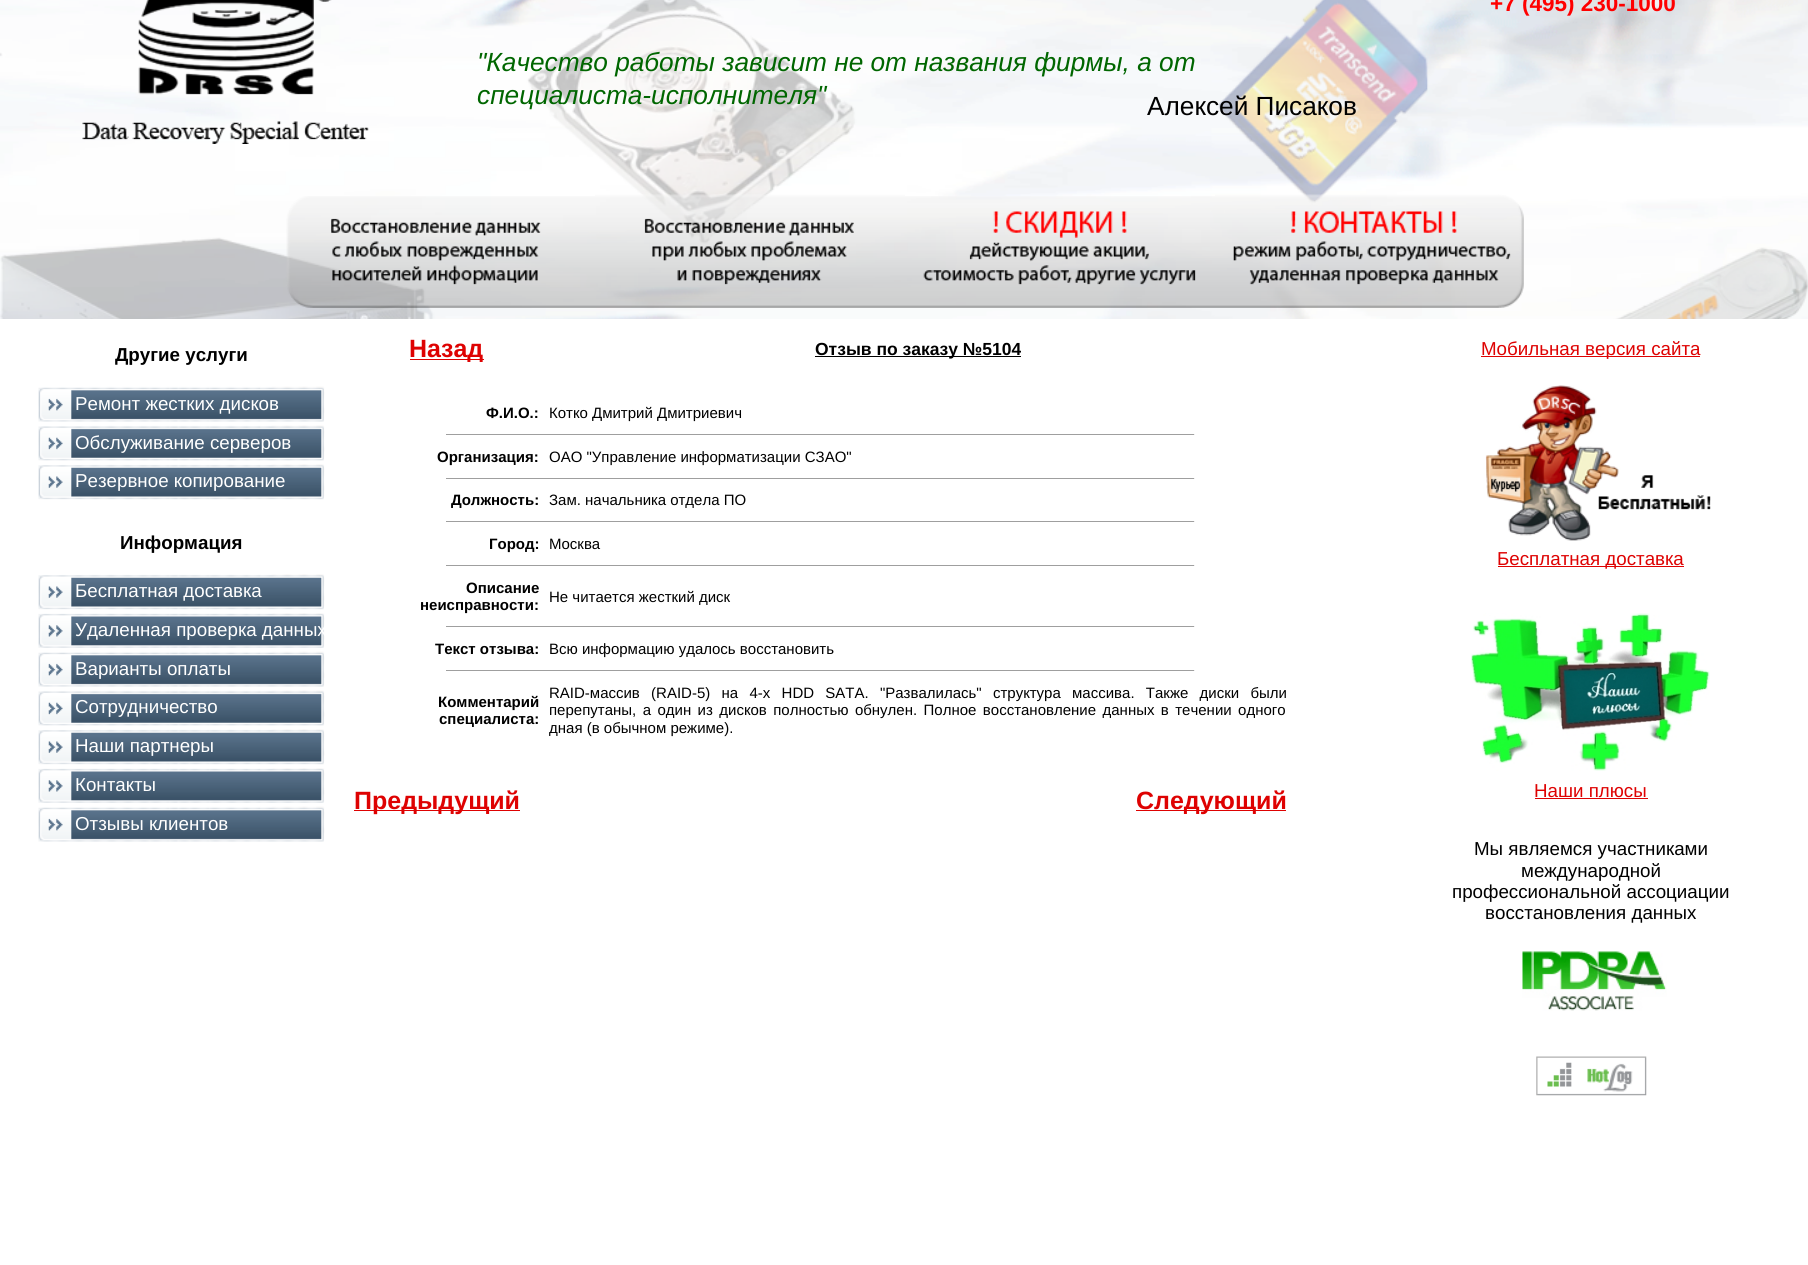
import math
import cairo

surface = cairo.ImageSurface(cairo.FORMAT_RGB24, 1808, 1265)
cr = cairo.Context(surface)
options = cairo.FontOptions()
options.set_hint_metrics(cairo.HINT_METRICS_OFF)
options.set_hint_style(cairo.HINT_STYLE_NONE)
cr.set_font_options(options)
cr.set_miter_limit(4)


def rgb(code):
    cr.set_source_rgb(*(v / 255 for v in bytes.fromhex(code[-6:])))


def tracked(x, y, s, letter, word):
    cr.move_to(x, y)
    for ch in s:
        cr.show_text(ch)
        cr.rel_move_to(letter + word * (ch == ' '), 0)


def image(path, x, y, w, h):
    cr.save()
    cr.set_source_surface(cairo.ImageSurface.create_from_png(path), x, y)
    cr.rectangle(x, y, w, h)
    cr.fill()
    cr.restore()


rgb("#ffffff")
cr.paint()
image("img/1.png", 0, 0, 1808, 319)
image("img/2.png", 82, 0, 287, 144)
image("img/3.png", 286, 196, 309, 112)
image("img/4.png", 595, 194, 310, 114)
image("img/5.png", 905, 196, 310, 112)
image("img/6.png", 1215, 194, 309, 114)
image("img/7.png", 38, 386, 287, 36)
image("img/8.png", 38, 425, 287, 36)
image("img/9.png", 38, 464, 287, 36)
image("img/9.png", 38, 574, 287, 36)
image("img/10.png", 38, 613, 287, 35)
image("img/7.png", 38, 651, 287, 36)
image("img/8.png", 38, 690, 287, 36)
image("img/9.png", 38, 729, 287, 36)
image("img/10.png", 38, 768, 287, 35)
image("img/7.png", 38, 806, 287, 36)
for x, y, w, h, color in [
    (410, 359, 74, 1, "#de0202"),
    (815, 356, 206, 1, "#000000"),
    (446, 434, 749, 1, "#9f9f9f"),
    (1194, 434, 1, 1, "#eeeeee"),
    (446, 478, 749, 1, "#9f9f9f"),
    (1194, 478, 1, 1, "#eeeeee"),
    (446, 521, 749, 1, "#9f9f9f"),
    (1194, 521, 1, 1, "#eeeeee"),
    (446, 565, 749, 1, "#9f9f9f"),
    (1194, 565, 1, 1, "#eeeeee"),
    (446, 626, 749, 1, "#9f9f9f"),
    (1194, 626, 1, 1, "#eeeeee"),
    (446, 670, 749, 1, "#9f9f9f"),
    (1194, 670, 1, 1, "#eeeeee"),
    (354, 810, 166, 1, "#de0202"),
    (1136, 810, 150, 1, "#de0202"),
    (1481, 356, 219, 1, "#de0202"),
]:
    rgb(color)
    cr.rectangle(x, y, w, h)
    cr.fill()
image("img/11.png", 1485, 385, 226, 156)
cr.rectangle(1498, 566, 186, 1)
cr.fill()
image("img/12.png", 1471, 613, 239, 158)
cr.rectangle(1535, 798, 113, 1)
cr.fill()
image("img/13.png", 1522, 951, 145, 60)
image("img/14.png", 1536, 1056, 111, 40)
cr.select_font_face("Liberation Sans", cairo.FONT_SLANT_NORMAL, cairo.FONT_WEIGHT_BOLD)
cr.set_font_size(22.5)
rgb("#ff0000")
cr.move_to(1490, 11)
cr.show_text("+7 (495) 230-1000")
cr.select_font_face("Liberation Sans", cairo.FONT_SLANT_ITALIC)
cr.set_font_size(26.25)
rgb("#006600")
cr.move_to(477, 71)
cr.show_text("\"Качество работы зависит не от названия фирмы, а от")
cr.move_to(477, 104)
cr.show_text("специалиста-исполнителя\"")
cr.select_font_face("Liberation Sans")
rgb("#000000")
cr.move_to(1147, 115)
cr.show_text("Алексей Писаков")
cr.select_font_face("Liberation Sans", cairo.FONT_SLANT_NORMAL, cairo.FONT_WEIGHT_BOLD)
cr.set_font_size(18.75)
cr.move_to(115, 361)
cr.show_text("Другие услуги")
cr.select_font_face("Liberation Sans")
rgb("#ffffff")
for x, y, s in [
    (75, 410, "Ремонт жестких дисков"),
    (75, 449, "Обслуживание серверов"),
    (75, 487, "Резервное копирование"),
]:
    cr.move_to(x, y)
    cr.show_text(s)
cr.select_font_face("Liberation Sans", cairo.FONT_SLANT_NORMAL, cairo.FONT_WEIGHT_BOLD)
rgb("#000000")
cr.move_to(120, 549)
cr.show_text("Информация")
cr.select_font_face("Liberation Sans")
rgb("#ffffff")
for x, y, s in [
    (75, 597, "Бесплатная доставка"),
    (75, 636, "Удаленная проверка данных"),
    (75, 675, "Варианты оплаты"),
    (75, 713, "Сотрудничество"),
    (75, 752, "Наши партнеры"),
    (75, 791, "Контакты"),
    (75, 830, "Отзывы клиентов"),
]:
    cr.move_to(x, y)
    cr.show_text(s)
cr.select_font_face("Liberation Sans", cairo.FONT_SLANT_NORMAL, cairo.FONT_WEIGHT_BOLD)
cr.set_font_size(25)
rgb("#de0202")
cr.move_to(409, 357)
cr.show_text("Назад")
cr.set_font_size(17.5)
rgb("#000000")
cr.move_to(815, 355)
cr.show_text("Отзыв по заказу №5104")
cr.set_font_size(15)
cr.move_to(486, 418)
cr.show_text("Ф.И.О.:")
cr.select_font_face("Liberation Sans")
cr.move_to(549, 418)
cr.show_text("Котко Дмитрий Дмитриевич")
cr.select_font_face("Liberation Sans", cairo.FONT_SLANT_NORMAL, cairo.FONT_WEIGHT_BOLD)
cr.move_to(437, 462)
cr.show_text("Организация:")
cr.select_font_face("Liberation Sans")
cr.move_to(549, 462)
cr.show_text("ОАО \"Управление информатизации СЗАО\"")
cr.select_font_face("Liberation Sans", cairo.FONT_SLANT_NORMAL, cairo.FONT_WEIGHT_BOLD)
cr.move_to(451, 505)
cr.show_text("Должность:")
cr.select_font_face("Liberation Sans")
cr.move_to(549, 505)
cr.show_text("Зам. начальника отдела ПО")
cr.select_font_face("Liberation Sans", cairo.FONT_SLANT_NORMAL, cairo.FONT_WEIGHT_BOLD)
cr.move_to(489, 549)
cr.show_text("Город:")
cr.select_font_face("Liberation Sans")
cr.move_to(549, 549)
cr.show_text("Москва")
cr.select_font_face("Liberation Sans", cairo.FONT_SLANT_NORMAL, cairo.FONT_WEIGHT_BOLD)
cr.move_to(466, 593)
cr.show_text("Описание")
cr.move_to(420, 610)
cr.show_text("неисправности:")
cr.select_font_face("Liberation Sans")
cr.move_to(549, 602)
cr.show_text("Не читается жесткий диск")
cr.select_font_face("Liberation Sans", cairo.FONT_SLANT_NORMAL, cairo.FONT_WEIGHT_BOLD)
cr.move_to(435, 654)
cr.show_text("Текст отзыва:")
cr.select_font_face("Liberation Sans")
cr.move_to(549, 654)
cr.show_text("Всю информацию удалось восстановить")
cr.select_font_face("Liberation Sans", cairo.FONT_SLANT_NORMAL, cairo.FONT_WEIGHT_BOLD)
cr.move_to(438, 707)
cr.show_text("Комментарий")
cr.move_to(439, 724)
cr.show_text("специалиста:")
cr.select_font_face("Liberation Sans")
tracked(549, 698, "RAID-массив (RAID-5) на 4-х HDD SATA. \"Развалилась\" структура массива. Также диски были", 0, 7.1)
tracked(549, 715, "перепутаны, а один из дисков полностью обнулен. Полное восстановление данных в течении одного", 0, 2.25)
cr.move_to(549, 733)
cr.show_text("дная (в обычном режиме).")
cr.select_font_face("Liberation Sans", cairo.FONT_SLANT_NORMAL, cairo.FONT_WEIGHT_BOLD)
cr.set_font_size(25)
rgb("#de0202")
cr.move_to(354, 809)
cr.show_text("Предыдущий")
cr.move_to(1136, 809)
cr.show_text("Следующий")
cr.select_font_face("Liberation Sans")
cr.set_font_size(18.75)
for x, y, s in [
    (1481, 355, "Мобильная версия сайта"),
    (1497, 565, "Бесплатная доставка"),
    (1534, 797, "Наши плюсы"),
]:
    cr.move_to(x, y)
    cr.show_text(s)
rgb("#000000")
for x, y, s in [
    (1474, 855, "Мы являемся участниками"),
    (1521, 877, "международной"),
    (1452, 898, "профессиональной ассоциации"),
    (1485, 919, "восстановления данных"),
]:
    cr.move_to(x, y)
    cr.show_text(s)
surface.write_to_png("page.png")
